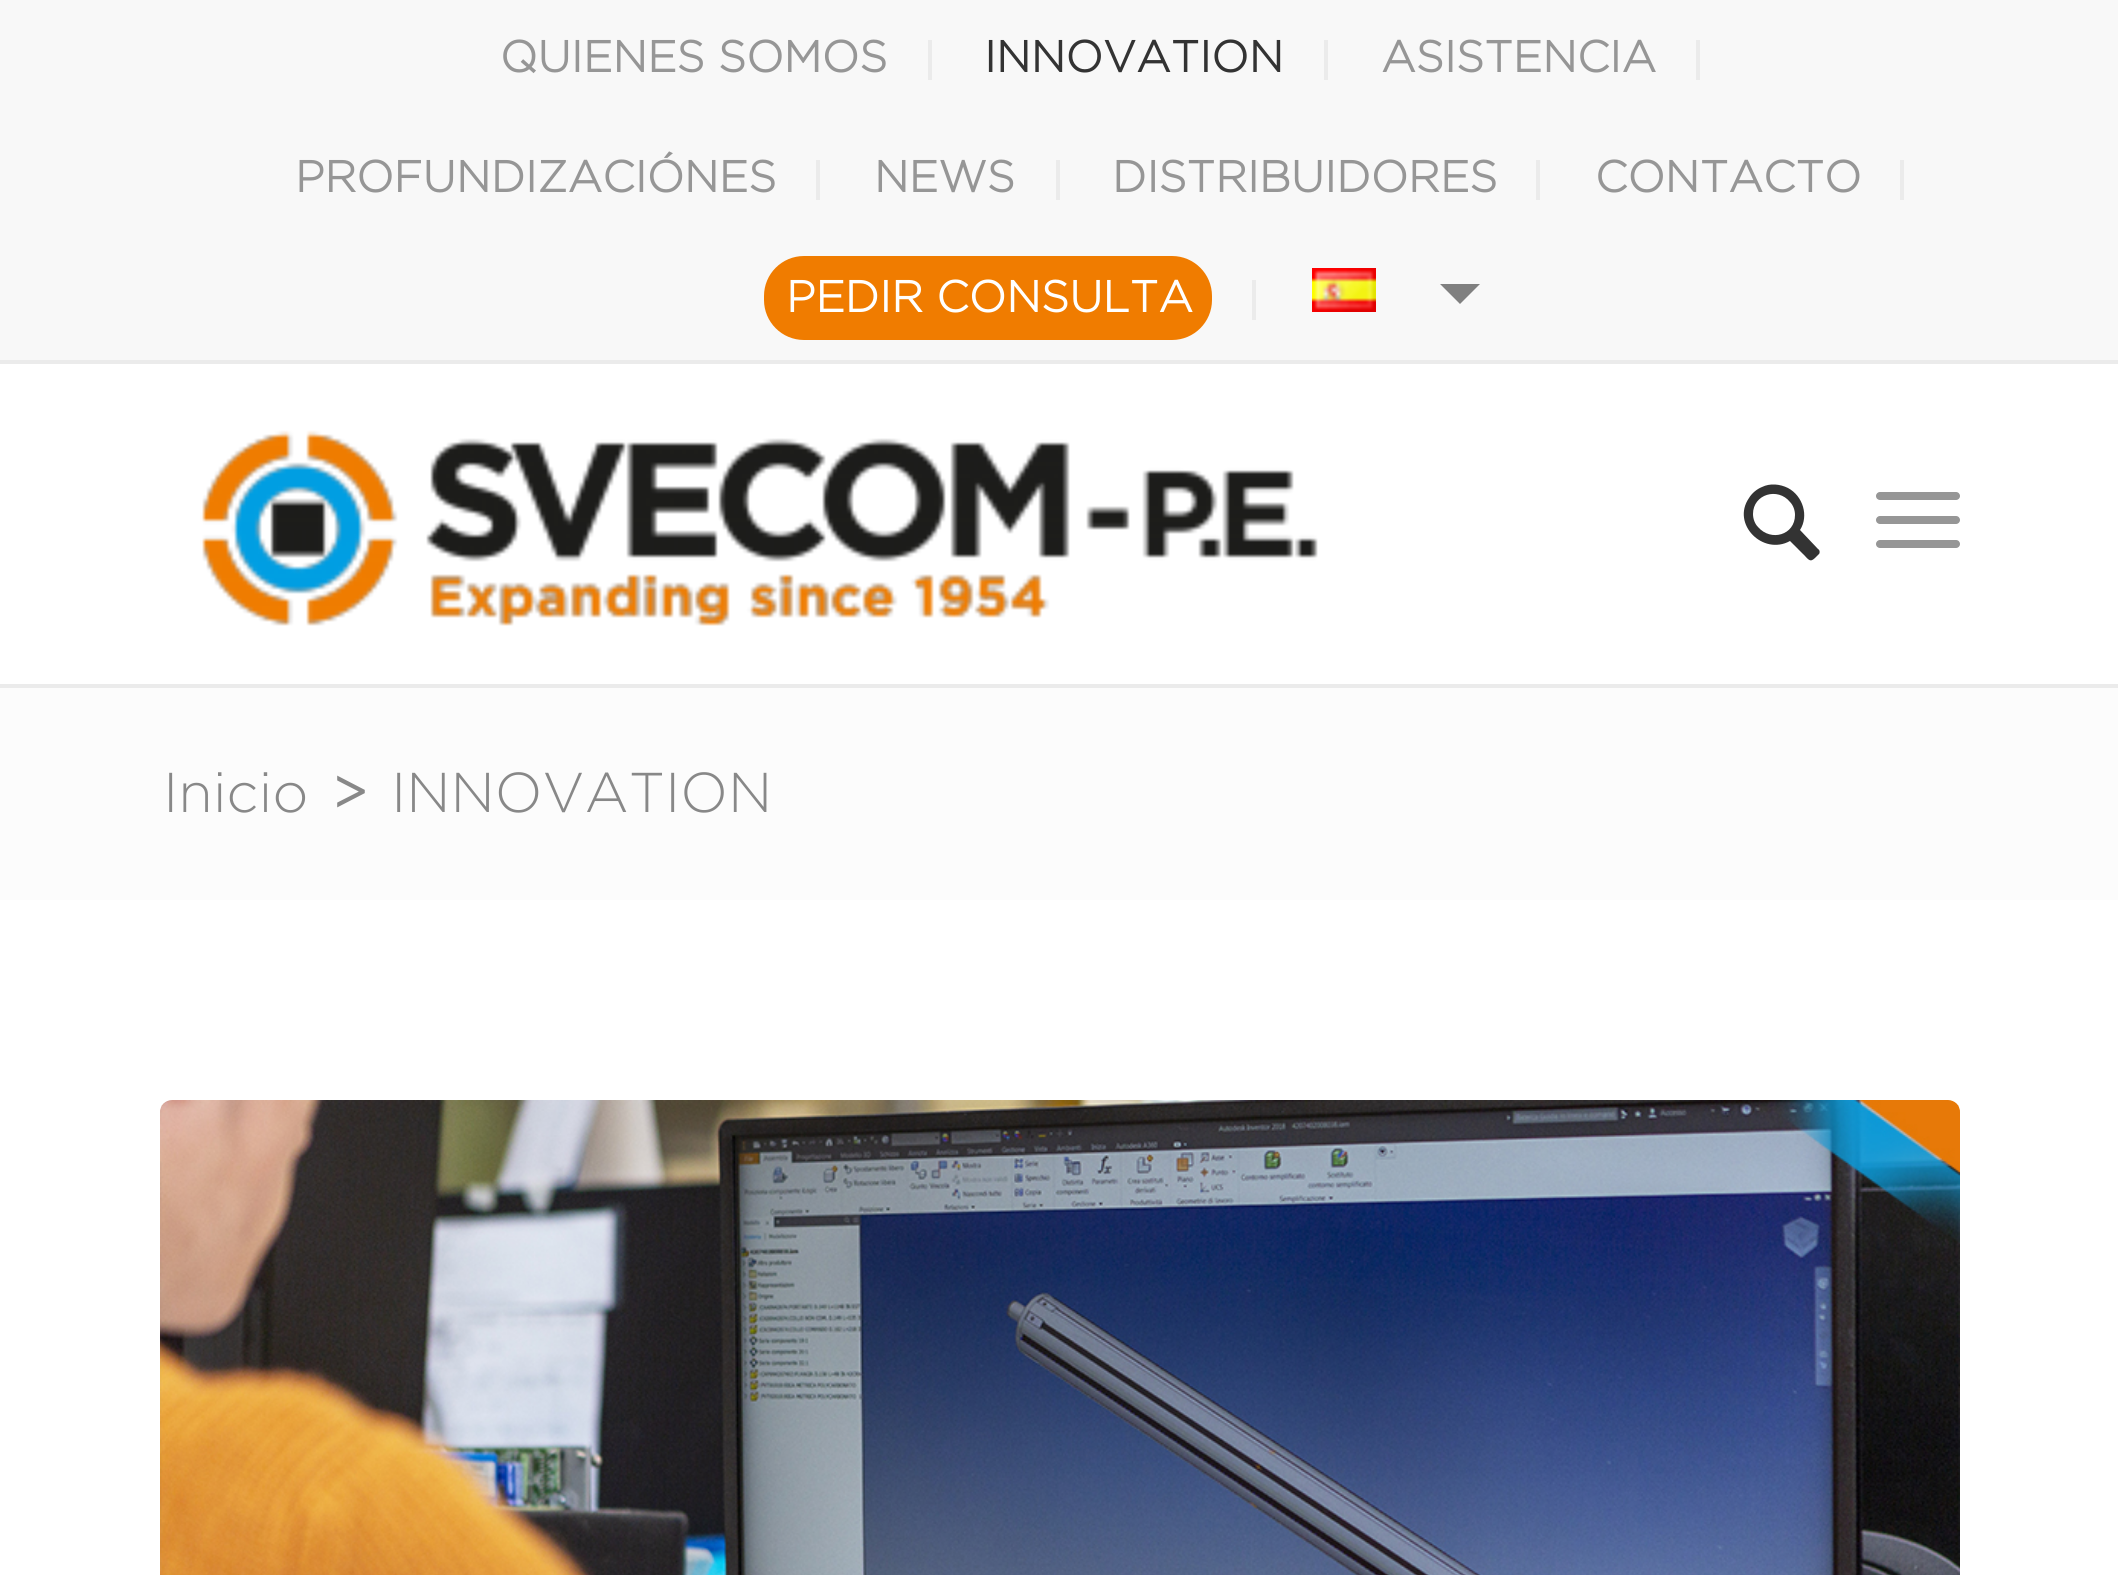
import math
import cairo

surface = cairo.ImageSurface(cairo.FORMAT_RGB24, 2118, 1575)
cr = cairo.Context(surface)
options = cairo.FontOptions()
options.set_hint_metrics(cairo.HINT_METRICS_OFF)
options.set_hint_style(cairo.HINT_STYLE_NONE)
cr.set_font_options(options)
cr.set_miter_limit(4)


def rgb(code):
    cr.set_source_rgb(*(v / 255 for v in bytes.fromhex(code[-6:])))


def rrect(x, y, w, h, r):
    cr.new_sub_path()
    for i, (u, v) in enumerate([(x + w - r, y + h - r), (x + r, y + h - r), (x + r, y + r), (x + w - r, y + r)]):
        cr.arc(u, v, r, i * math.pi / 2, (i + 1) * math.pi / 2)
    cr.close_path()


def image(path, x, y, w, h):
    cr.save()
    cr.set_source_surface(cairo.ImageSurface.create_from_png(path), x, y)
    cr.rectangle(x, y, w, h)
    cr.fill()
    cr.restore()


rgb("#ffffff")
cr.paint()
for x, y, w, h, color in [
    (0, 0, 2118, 360, "#f8f8f8"),
    (0, 360, 2118, 4, "#ebebeb"),
    (928, 40, 4, 40, "#ebebeb"),
    (1324, 40, 4, 40, "#ebebeb"),
    (1696, 40, 4, 40, "#ebebeb"),
    (816, 160, 4, 40, "#ebebeb"),
    (1056, 160, 4, 40, "#ebebeb"),
    (1536, 160, 4, 40, "#ebebeb"),
    (1900, 160, 4, 40, "#ebebeb"),
    (1252, 280, 4, 40, "#ebebeb"),
]:
    rgb(color)
    cr.rectangle(x, y, w, h)
    cr.fill()
rgb("#f07c00")
rrect(764, 256, 448, 84, 40)
cr.fill()
image("img/1.png", 1312, 268, 64, 44)
rgb("#808080")
cr.new_path()
cr.move_to(1440, 284)
cr.line_to(1480, 284)
cr.line_to(1460, 304)
cr.close_path()
cr.fill()
rgb("#ebebeb")
cr.rectangle(0, 684, 2118, 4)
cr.fill()
image("img/2.png", 200, 430, 1118, 196)
rgb("#333333")
cr.new_path()
cr.move_to(1818, 549)
cr.curve_to(1820, 550, 1820, 553, 1819, 554)
cr.curve_to(1812, 561, 1811, 563, 1805, 556)
cr.line_to(1790, 541)
cr.curve_to(1763, 556, 1731, 524, 1749, 498)
cr.curve_to(1752, 493, 1757, 489, 1762, 487)
cr.curve_to(1770, 483, 1780, 484, 1788, 488)
cr.curve_to(1803, 496, 1809, 516, 1800, 530)
cr.close_path()
cr.move_to(1753, 514)
cr.curve_to(1753, 519, 1755, 524, 1758, 527)
cr.curve_to(1771, 542, 1795, 535, 1795, 515)
cr.curve_to(1795, 510, 1793, 505, 1790, 502)
cr.curve_to(1778, 487, 1753, 494, 1753, 514)
cr.close_path()
cr.fill()
rgb("#969696")
rrect(1876, 516, 84, 8, 4)
cr.fill()
rrect(1876, 492, 84, 8, 4)
cr.fill()
rrect(1876, 540, 84, 8, 4)
cr.fill()
rgb("#fcfcfc")
cr.rectangle(0, 688, 2118, 212)
cr.fill()
image("img/3.png", 160, 1100, 1800, 475)
cr.select_font_face("Gotham", cairo.FONT_SLANT_NORMAL, cairo.FONT_WEIGHT_BOLD)
cr.set_font_size(44)
rgb("#969696")
cr.move_to(500, 72)
cr.show_text("QUIENES SOMOS")
rgb("#333333")
cr.move_to(984, 72)
cr.show_text("INNOVATION")
rgb("#969696")
for x, y, s in [
    (1381, 72, "ASISTENCIA"),
    (295, 192, "PROFUNDIZACIÓNES"),
    (874, 192, "NEWS"),
    (1112, 192, "DISTRIBUIDORES"),
    (1595, 192, "CONTACTO"),
]:
    cr.move_to(x, y)
    cr.show_text(s)
rgb("#ffffff")
cr.move_to(786, 312)
cr.show_text("PEDIR CONSULTA")
cr.select_font_face("Gotham Light")
cr.set_font_size(56)
rgb("#888888")
cr.move_to(163, 812)
cr.show_text("Inicio")
cr.select_font_face("Gotham", cairo.FONT_SLANT_NORMAL, cairo.FONT_WEIGHT_BOLD)
cr.move_to(332, 812)
cr.show_text(">")
cr.select_font_face("Gotham Light")
cr.move_to(391, 812)
cr.show_text("INNOVATION")
surface.write_to_png("page.png")
